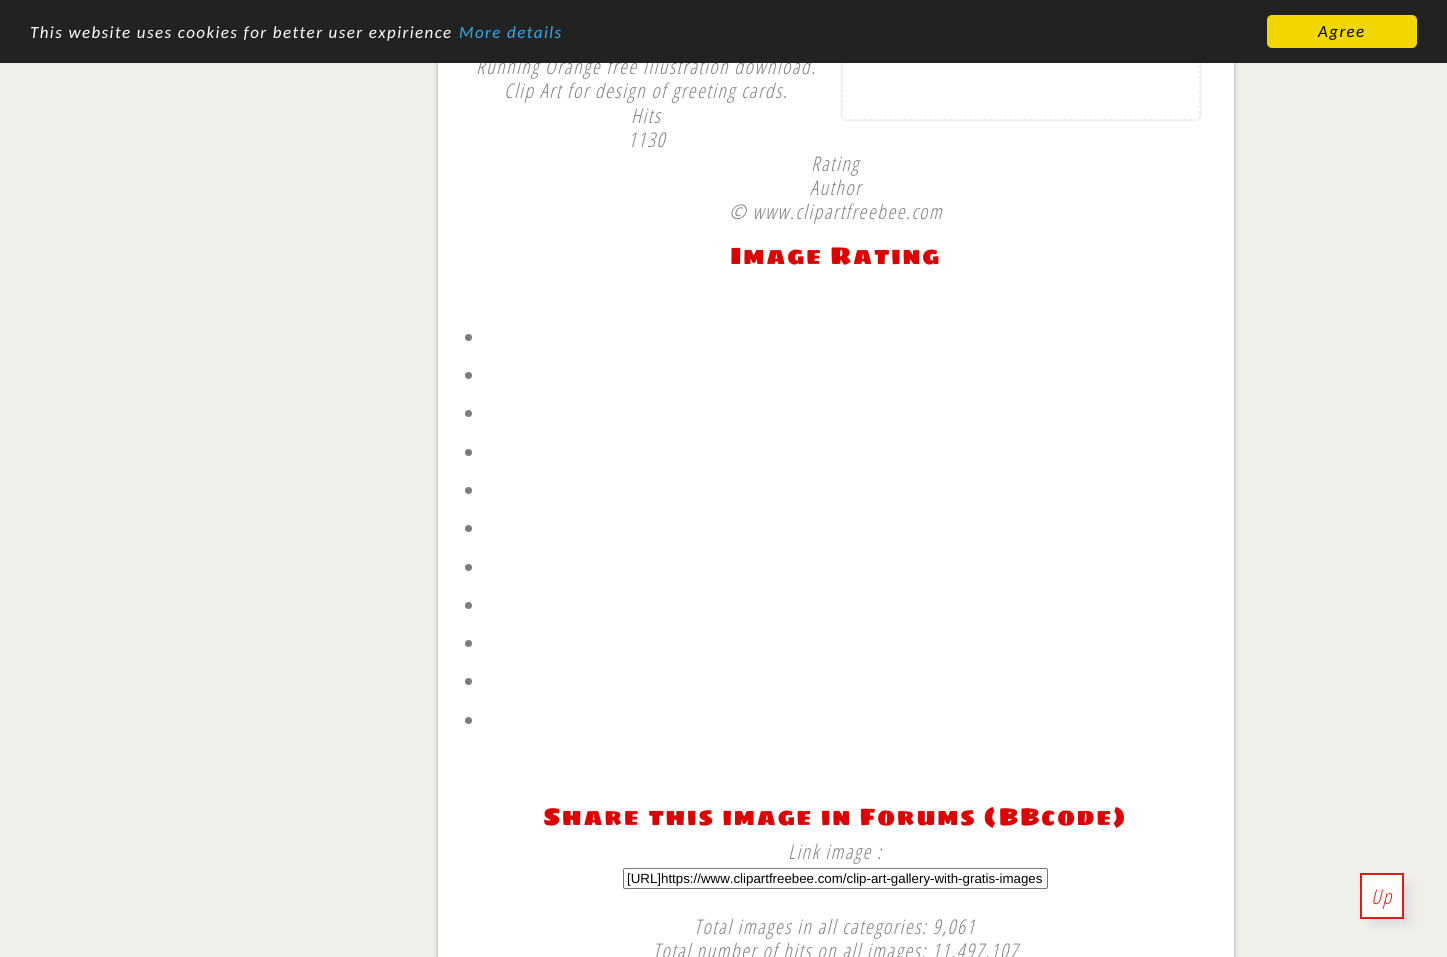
import math
import cairo

surface = cairo.ImageSurface(cairo.FORMAT_RGB24, 1447, 957)
cr = cairo.Context(surface)
options = cairo.FontOptions()
options.set_hint_metrics(cairo.HINT_METRICS_OFF)
options.set_hint_style(cairo.HINT_STYLE_NONE)
cr.set_font_options(options)
cr.set_miter_limit(4)


def rgb(code):
    cr.set_source_rgb(*(v / 255 for v in bytes.fromhex(code[-6:])))


def tracked(x, y, s, letter, word):
    cr.move_to(x, y)
    for ch in s:
        cr.show_text(ch)
        cr.rel_move_to(letter + word * (ch == ' '), 0)


def rrect(x, y, w, h, r):
    cr.new_sub_path()
    for i, (u, v) in enumerate([(x + w - r, y + h - r), (x + r, y + h - r), (x + r, y + r), (x + w - r, y + r)]):
        cr.arc(u, v, r, i * math.pi / 2, (i + 1) * math.pi / 2)
    cr.close_path()


def soft_shadow(x, y, w, h, r, blur, alpha):
    cr.push_group_with_content(cairo.CONTENT_ALPHA)
    cr.set_operator(cairo.OPERATOR_SOURCE)
    for i in range(15, -16, -2):
        e = blur * i / 6
        if min(w, h) + 2 * e > 0:
            cr.set_source_rgba(0, 0, 0, alpha * math.erfc((i - 1) / 8.5) / 2)
            rrect(x - e, y - e, w + 2 * e, h + 2 * e, max(0, min(r + e + blur * .6, min(w, h) / 2 + e)))
            cr.fill()
    cr.mask(cr.pop_group())


rgb("#f0efea")
cr.paint()
rgb("#000000")
soft_shadow(438, -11, 796, 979, 3, 2.5, 0.3)
rgb("#ffffff")
cr.rectangle(438, 63, 796, 894)
cr.fill()
cr.save()
cr.set_fill_rule(cairo.FILL_RULE_EVEN_ODD)
cr.new_path()
cr.move_to(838, 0)
cr.line_to(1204, 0)
cr.line_to(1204, 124)
cr.line_to(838, 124)
cr.close_path()
cr.move_to(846, -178)
cr.line_to(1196, -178)
cr.curve_to(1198, -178, 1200, -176, 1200, -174)
cr.line_to(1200, 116)
cr.curve_to(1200, 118, 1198, 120, 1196, 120)
cr.line_to(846, 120)
cr.curve_to(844, 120, 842, 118, 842, 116)
cr.line_to(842, -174)
cr.curve_to(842, -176, 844, -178, 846, -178)
cr.close_path()
cr.clip()
rgb("#ededed")
soft_shadow(841, -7, 360, 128, 5, 0.5, 1)
cr.restore()
cr.new_path()
cr.move_to(846, -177.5)
cr.line_to(1196, -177.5)
cr.curve_to(1198, -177.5, 1199.5, -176, 1199.5, -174)
cr.line_to(1199.5, 116)
cr.curve_to(1199.5, 118, 1198, 119.5, 1196, 119.5)
cr.line_to(846, 119.5)
cr.curve_to(844, 119.5, 842.5, 118, 842.5, 116)
cr.line_to(842.5, -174)
cr.curve_to(842.5, -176, 844, -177.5, 846, -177.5)
cr.close_path()
rgb("#ededed")
cr.set_line_width(1)
cr.set_dash([3, 2])
cr.stroke()
rgb("#7c7c7c")
cr.arc(468.5, 337.5, 3.5, 0, 2 * math.pi)
cr.fill()
cr.arc(468.5, 375.5, 3.5, 0, 2 * math.pi)
cr.fill()
cr.arc(468.5, 413.5, 3.5, 0, 2 * math.pi)
cr.fill()
cr.arc(468.5, 452.5, 3.5, 0, 2 * math.pi)
cr.fill()
cr.arc(468.5, 490.5, 3.5, 0, 2 * math.pi)
cr.fill()
cr.arc(468.5, 528.5, 3.5, 0, 2 * math.pi)
cr.fill()
cr.arc(468.5, 567.5, 3.5, 0, 2 * math.pi)
cr.fill()
cr.arc(468.5, 605.5, 3.5, 0, 2 * math.pi)
cr.fill()
cr.arc(468.5, 643.5, 3.5, 0, 2 * math.pi)
cr.fill()
cr.arc(468.5, 681.5, 3.5, 0, 2 * math.pi)
cr.fill()
cr.arc(468.5, 720.5, 3.5, 0, 2 * math.pi)
cr.fill()
rrect(623.5, 868.5, 424, 20, 1.5)
rgb("#767676")
cr.set_dash([])
cr.stroke()
rgb("#d9d6d8")
soft_shadow(1372, 885, 36, 38, 0, 6, 1)
rgb("#fefdfd")
cr.rectangle(1361, 874, 42, 44)
cr.fill_preserve()
rgb("#dc1c1b")
cr.set_line_width(2)
cr.stroke()
cr.select_font_face("Open Sans Condensed Light", cairo.FONT_SLANT_ITALIC)
cr.set_font_size(20.2)
rgb("#7c7c7c")
tracked(476, 74, "Running Orange free Illustration download.", 1.4, 0)
rgb("#222222")
cr.rectangle(0, 0, 1447, 63)
cr.fill()
cr.select_font_face("Carlito", cairo.FONT_SLANT_ITALIC)
cr.set_font_size(17)
rgb("#31a8f0")
tracked(459, 38, "More details", 1.4, 0)
rgb("#ffffff")
tracked(30, 38, "This website uses cookies for better user expirience", 1.4, 0)
rgb("#f1d600")
rrect(1267, 15, 150, 33, 5)
cr.fill()
rgb("#000000")
tracked(1318, 37, "Agree", 1.4, 0)
cr.select_font_face("Open Sans Condensed Light", cairo.FONT_SLANT_ITALIC)
cr.set_font_size(20.2)
rgb("#7c7c7c")
for x, y, s in [
    (504, 98, "Clip Art for design of greeting cards."),
    (631, 123, "Hits"),
    (628, 147, "1130"),
    (811, 171, "Rating"),
    (810, 195, "Author"),
    (729, 219, "© www.clipartfreebee.com"),
]:
    tracked(x, y, s, 1.4, 0)
cr.select_font_face("Sigmar One")
cr.set_font_size(24.2)
rgb("#da0404")
tracked(730, 264, "Image Rating", 1.4, 0)
tracked(543, 825, "Share this image in Forums (BBcode)", 1.4, 0)
cr.select_font_face("Open Sans Condensed Light", cairo.FONT_SLANT_ITALIC)
cr.set_font_size(20.2)
rgb("#7c7c7c")
tracked(788, 859, "Link image :", 1.4, 0)
cr.select_font_face("Liberation Sans")
cr.set_font_size(13.3)
rgb("#000000")
cr.move_to(627, 883)
cr.show_text("[URL]https://www.clipartfreebee.com/clip-art-gallery-with-gratis-images")
cr.select_font_face("Open Sans Condensed Light", cairo.FONT_SLANT_ITALIC)
cr.set_font_size(20.2)
rgb("#7c7c7c")
tracked(694, 934, "Total images in all categories: 9,061", 1.4, 0)
tracked(653, 958, "Total number of hits on all images: 11,497,107", 1.4, 0)
rgb("#dc1c1b")
tracked(1371, 904, "Up", 1.4, 0)
surface.write_to_png("page.png")
